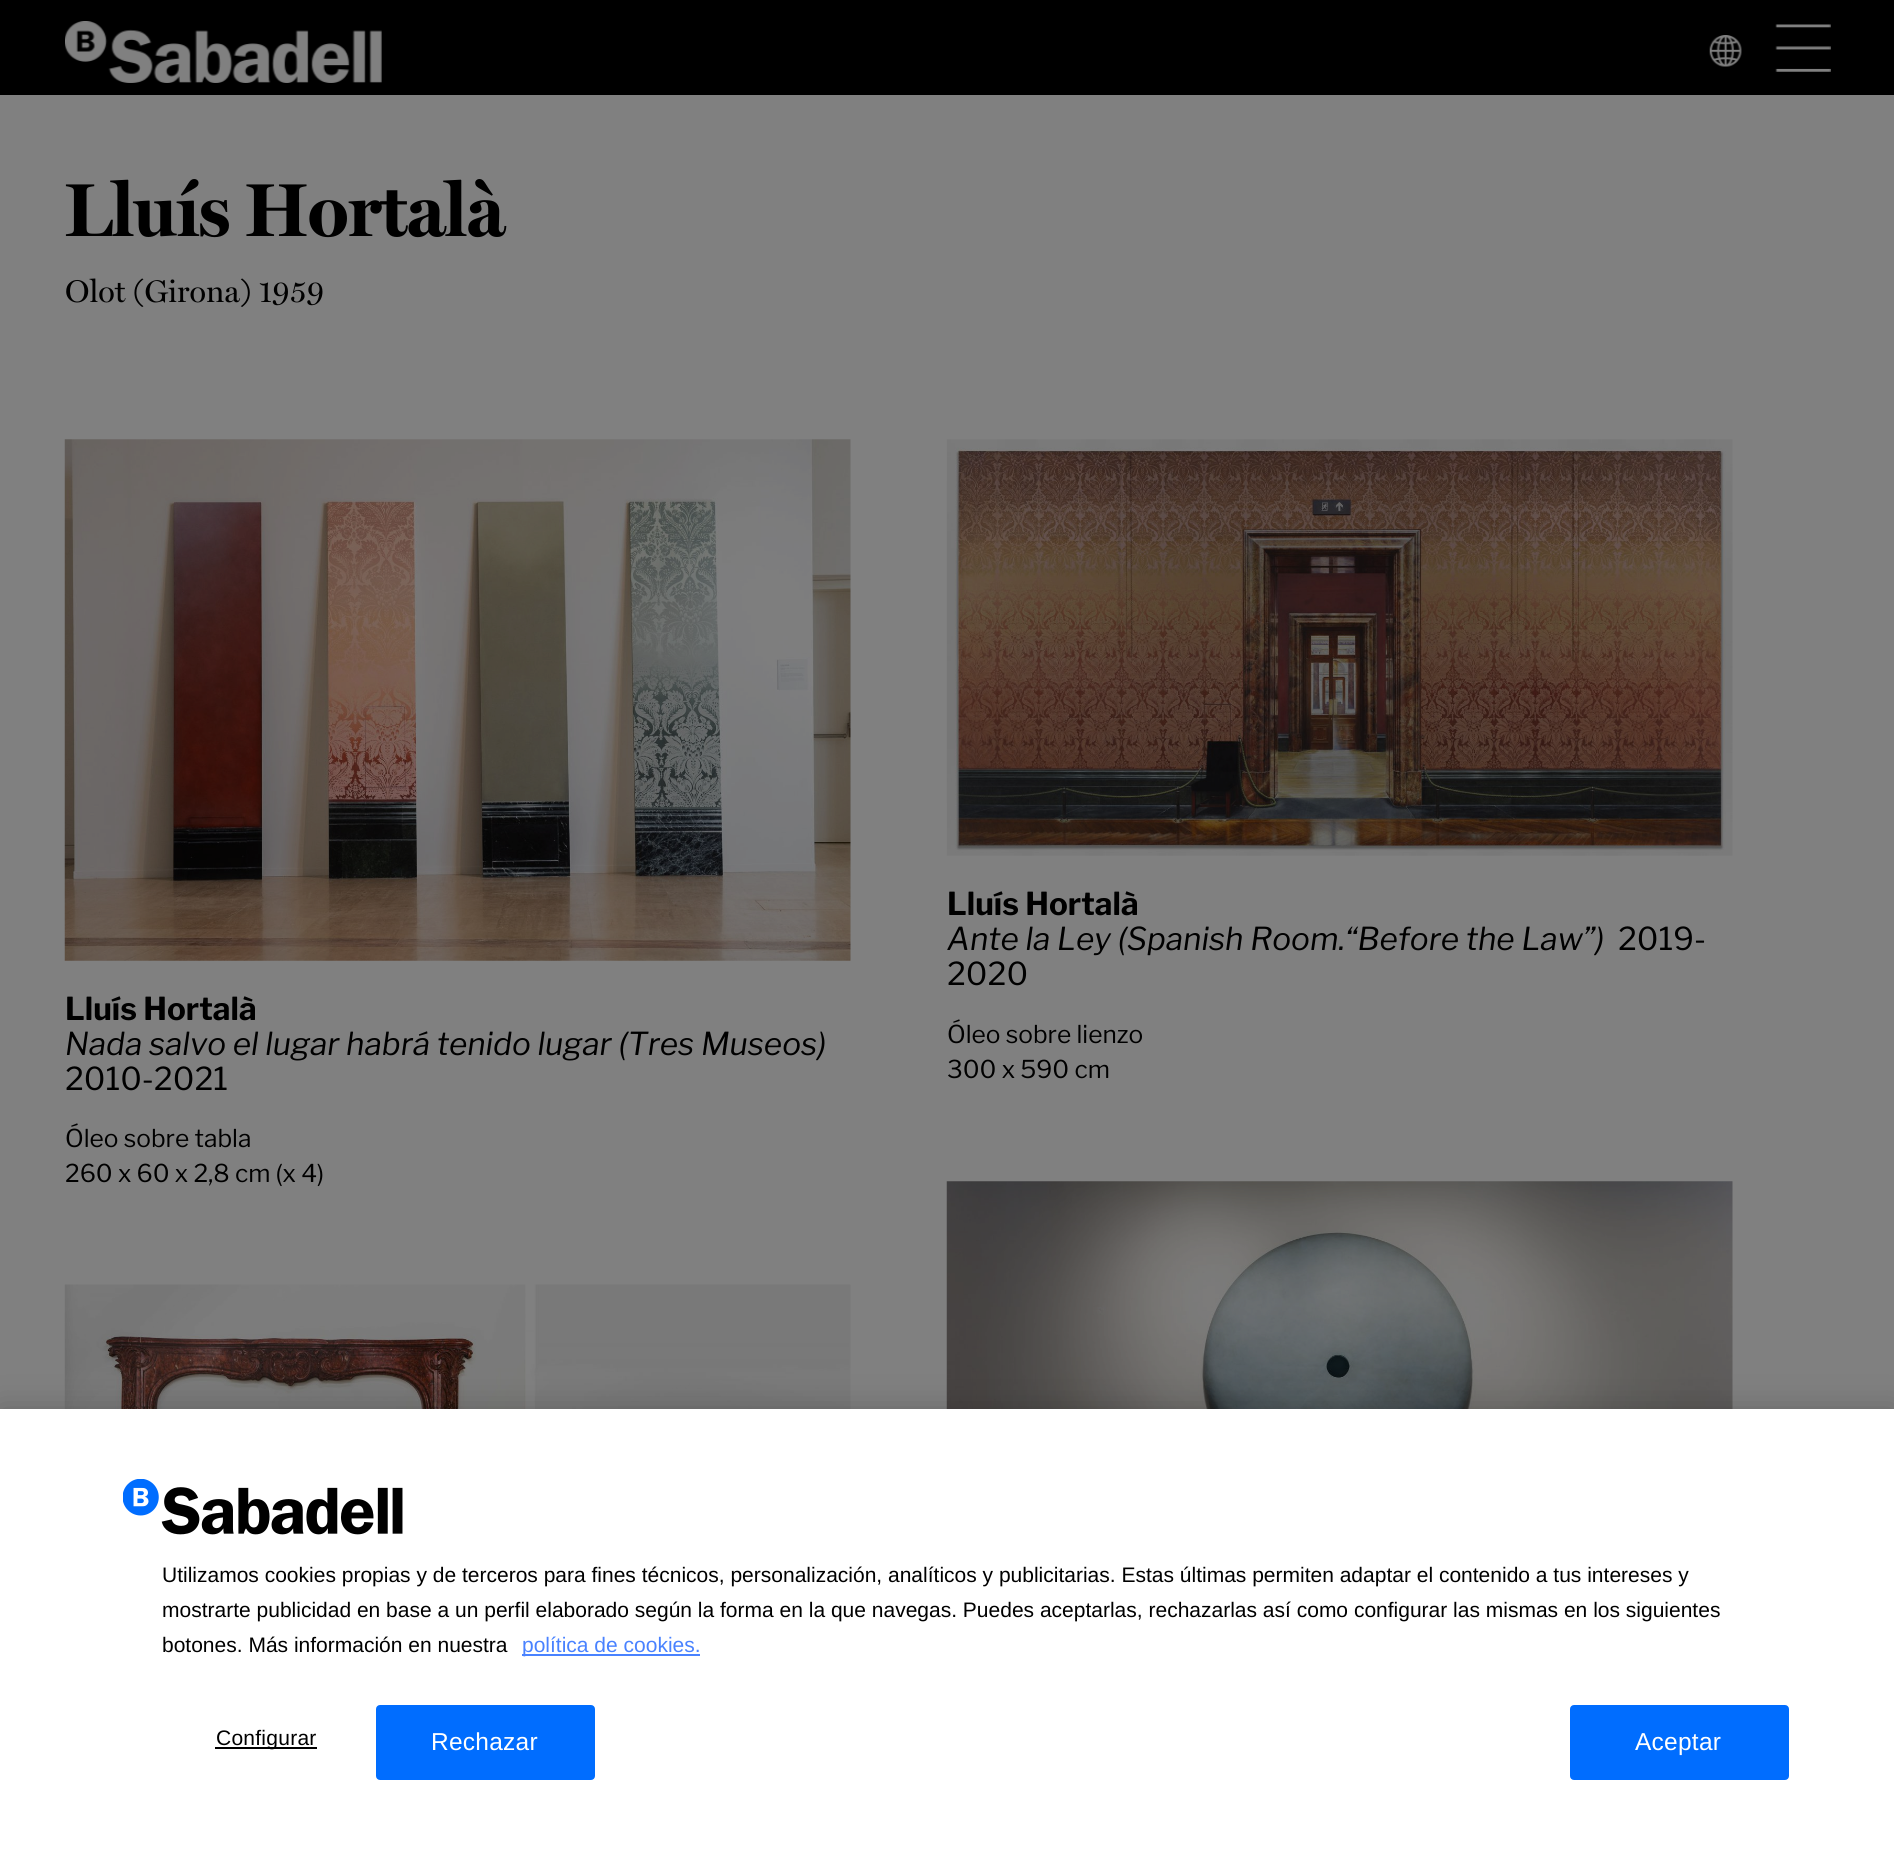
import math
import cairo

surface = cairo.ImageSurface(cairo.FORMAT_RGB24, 1894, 1873)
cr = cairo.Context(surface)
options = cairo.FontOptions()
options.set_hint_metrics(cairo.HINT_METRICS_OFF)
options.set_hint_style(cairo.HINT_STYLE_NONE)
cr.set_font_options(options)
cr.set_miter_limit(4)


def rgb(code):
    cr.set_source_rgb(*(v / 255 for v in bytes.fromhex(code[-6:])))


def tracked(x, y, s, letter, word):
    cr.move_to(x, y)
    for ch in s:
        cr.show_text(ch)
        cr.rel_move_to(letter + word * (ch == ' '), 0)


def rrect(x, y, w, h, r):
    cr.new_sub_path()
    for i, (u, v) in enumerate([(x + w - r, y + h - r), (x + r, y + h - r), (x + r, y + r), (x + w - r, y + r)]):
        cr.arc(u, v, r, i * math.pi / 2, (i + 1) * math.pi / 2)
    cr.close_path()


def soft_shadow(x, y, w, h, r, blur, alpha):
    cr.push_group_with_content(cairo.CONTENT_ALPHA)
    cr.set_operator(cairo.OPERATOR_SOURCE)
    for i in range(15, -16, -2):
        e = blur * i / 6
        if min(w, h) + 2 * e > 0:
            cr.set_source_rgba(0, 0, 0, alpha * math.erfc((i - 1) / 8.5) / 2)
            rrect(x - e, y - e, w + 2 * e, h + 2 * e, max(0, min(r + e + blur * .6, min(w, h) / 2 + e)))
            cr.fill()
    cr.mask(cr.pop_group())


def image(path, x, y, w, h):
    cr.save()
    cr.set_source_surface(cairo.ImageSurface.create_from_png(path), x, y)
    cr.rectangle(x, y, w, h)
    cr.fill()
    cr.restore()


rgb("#808080")
cr.paint()
rgb("#000000")
cr.rectangle(0, 0, 1894, 95)
cr.fill()
image("img/1.png", 65, 21, 317, 62)
image("img/2.png", 1709, 35, 33, 32)
image("img/3.png", 1775, 24, 56, 48)
image("img/4.png", 64, 439, 787, 522)
image("img/5.png", 946, 439, 787, 417)
image("img/6.png", 64, 1284, 787, 125)
image("img/7.png", 946, 1181, 787, 228)
rgb("#000000")
soft_shadow(0, 1409, 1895, 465, 0, 16, 0.2)
rgb("#ffffff")
cr.rectangle(0, 1409, 1894, 464)
cr.fill()
image("img/8.png", 123, 1479, 280, 56)
rgb("#4982ff")
cr.rectangle(522, 1654, 178, 2)
cr.fill()
rgb("#000000")
cr.rectangle(215, 1747, 102, 2)
cr.fill()
rgb("#006dff")
rrect(377, 1706, 217, 73, 3)
cr.fill_preserve()
cr.stroke()
rrect(1571, 1706, 217, 73, 3)
cr.fill_preserve()
cr.stroke()
cr.select_font_face("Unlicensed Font", cairo.FONT_SLANT_NORMAL, cairo.FONT_WEIGHT_BOLD)
cr.set_font_size(75.5)
rgb("#000000")
cr.move_to(65, 236)
cr.show_text("Lluís Hortalà")
cr.select_font_face("Unlicensed Font")
cr.set_font_size(31.5)
cr.move_to(65, 302)
cr.show_text("Olot (Girona) 1959")
cr.select_font_face("Libre Franklin Thin")
cr.move_to(65, 1020)
cr.show_text("Lluís Hortalà")
cr.select_font_face("Libre Franklin Thin", cairo.FONT_SLANT_ITALIC)
cr.move_to(65, 1055)
cr.show_text("Nada salvo el lugar habrá tenido lugar (Tres Museos)")
cr.select_font_face("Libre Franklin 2 Thin")
cr.move_to(65, 1090)
cr.show_text("2010-2021")
cr.set_font_size(24.5)
cr.move_to(65, 1147)
cr.show_text("Óleo sobre tabla")
cr.move_to(65, 1182)
cr.show_text("260 x 60 x 2,8 cm (x 4)")
cr.select_font_face("Libre Franklin Thin")
cr.set_font_size(31.5)
cr.move_to(947, 915)
cr.show_text("Lluís Hortalà")
cr.select_font_face("Libre Franklin Thin", cairo.FONT_SLANT_ITALIC)
cr.move_to(947, 950)
cr.show_text("Ante la Ley (Spanish Room.“Before the Law”)")
cr.select_font_face("Libre Franklin 2 Thin")
cr.move_to(1618, 950)
cr.show_text("2019-")
cr.move_to(947, 985)
cr.show_text("2020")
cr.set_font_size(24.5)
cr.move_to(947, 1043)
cr.show_text("Óleo sobre lienzo")
cr.move_to(947, 1078)
cr.show_text("300 x 590 cm")
cr.select_font_face("Liberation Sans")
cr.set_font_size(21)
for x, y, s in [
    (162, 1582, "Utilizamos cookies propias y de terceros para fines técnicos, personalización, analíticos y publicitarias. Estas últimas permiten adaptar el contenido a tus intereses y"),
    (162, 1617, "mostrarte publicidad en base a un perfil elaborado según la forma en la que navegas. Puedes aceptarlas, rechazarlas así como configurar las mismas en los siguientes"),
    (162, 1652, "botones. Más información en nuestra"),
]:
    cr.move_to(x, y)
    cr.show_text(s)
rgb("#4982ff")
cr.move_to(522, 1652)
cr.show_text("política de cookies.")
rgb("#000000")
tracked(216, 1745, "Configurar", 0.25, 0)
cr.set_font_size(24.5)
rgb("#ffffff")
tracked(431, 1750, "Rechazar", 0.25, 0)
tracked(1635, 1750, "Aceptar", 0.25, 0)
surface.write_to_png("page.png")
